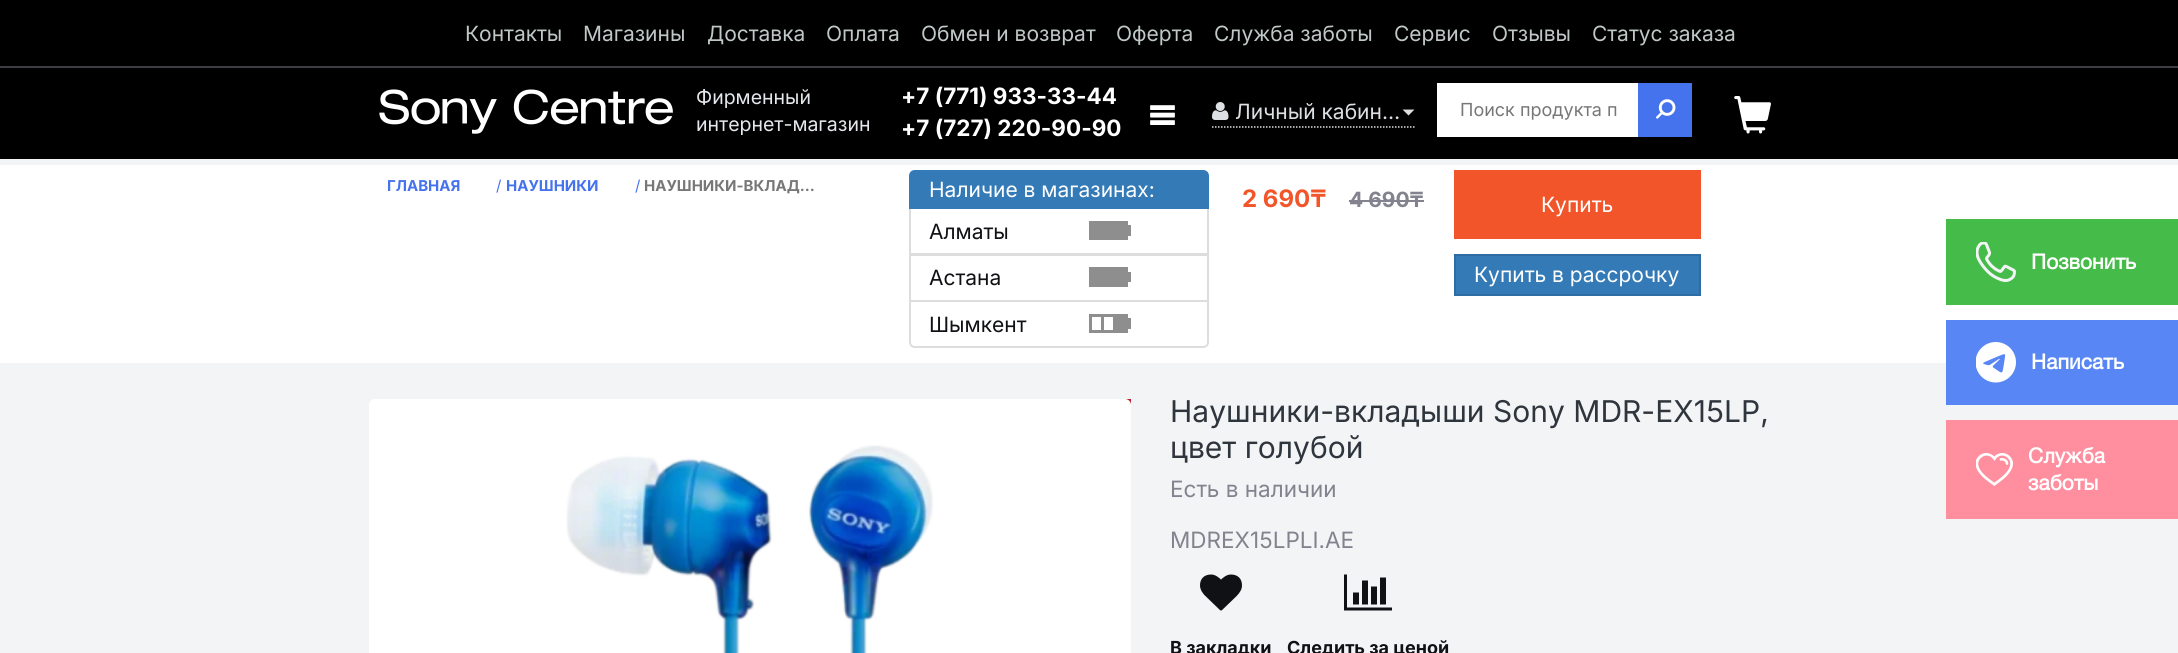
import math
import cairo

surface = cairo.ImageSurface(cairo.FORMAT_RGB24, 2178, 653)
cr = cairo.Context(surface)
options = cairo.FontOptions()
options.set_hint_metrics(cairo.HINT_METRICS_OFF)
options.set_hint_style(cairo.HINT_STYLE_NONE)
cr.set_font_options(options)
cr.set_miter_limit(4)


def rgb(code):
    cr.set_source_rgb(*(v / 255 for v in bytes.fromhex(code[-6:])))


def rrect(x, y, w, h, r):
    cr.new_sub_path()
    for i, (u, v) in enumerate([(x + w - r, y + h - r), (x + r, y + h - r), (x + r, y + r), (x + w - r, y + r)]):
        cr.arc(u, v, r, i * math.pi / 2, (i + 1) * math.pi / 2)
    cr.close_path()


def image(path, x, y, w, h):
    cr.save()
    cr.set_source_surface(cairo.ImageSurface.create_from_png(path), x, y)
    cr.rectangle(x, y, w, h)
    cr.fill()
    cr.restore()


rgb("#f3f4f6")
cr.paint()
rgb("#000000")
cr.rectangle(0, 0, 2178, 159)
cr.fill()
rgb("#3c3c42")
cr.rectangle(0, 66, 2178, 2)
cr.fill()
image("img/1.png", 379, 89, 294, 45)
image("img/2.png", 1150, 105, 25, 20)
cr.new_path()
cr.move_to(1212, 127)
cr.line_to(1414.5, 127)
rgb("#dcdfe3")
cr.set_line_width(1.5)
cr.set_dash([1.5, 1.5])
cr.stroke()
image("img/3.png", 1212, 102, 17, 18)
cr.new_path()
cr.move_to(1402.5, 109.5)
cr.line_to(1414.5, 109.5)
cr.line_to(1408.5, 115.5)
cr.close_path()
cr.fill()
rgb("#ffffff")
cr.rectangle(1437, 83, 201, 54)
cr.fill()
rgb("#4572ed")
cr.rectangle(1638, 83, 54, 54)
cr.fill()
image("img/4.png", 1656, 99, 20, 20)
image("img/5.png", 1734, 96, 37, 38)
rgb("#ffffff")
cr.rectangle(0, 165, 2178, 198)
cr.fill()
cr.rectangle(910, 208, 298, 46)
rgb("#dddddd")
cr.set_line_width(2)
cr.set_dash([])
cr.stroke()
rgb("#337ab7")
cr.new_path()
cr.move_to(915, 171)
cr.line_to(1203, 171)
cr.curve_to(1206, 171, 1208, 173, 1208, 176)
cr.line_to(1208, 208)
cr.line_to(910, 208)
cr.line_to(910, 176)
cr.curve_to(910, 173, 912, 171, 915, 171)
cr.close_path()
cr.fill_preserve()
cr.stroke()
rgb("#8e8e8e")
cr.rectangle(1089, 221, 39, 19)
cr.fill()
cr.rectangle(1128, 225, 3, 11)
cr.fill()
cr.rectangle(910, 255, 298, 46)
rgb("#dddddd")
cr.stroke()
rgb("#8e8e8e")
cr.rectangle(1089, 267, 39, 20)
cr.fill()
cr.rectangle(1128, 272, 3, 10)
cr.fill()
rgb("#ffffff")
cr.new_path()
cr.move_to(910, 301)
cr.line_to(1208, 301)
cr.line_to(1208, 342)
cr.curve_to(1208, 345, 1206, 347, 1203, 347)
cr.line_to(915, 347)
cr.curve_to(912, 347, 910, 345, 910, 342)
cr.close_path()
cr.fill_preserve()
rgb("#dddddd")
cr.stroke()
for x, y, w, h, color in [
    (1089, 314, 39, 19, "#8e8e8e"),
    (1128, 318, 3, 11, "#8e8e8e"),
    (1092, 317, 9, 13, "#ffffff"),
    (1104, 317, 9, 13, "#ffffff"),
    (1349, 200, 75, 2, "#83838f"),
    (1454, 170, 247, 69, "#f25529"),
]:
    rgb(color)
    cr.rectangle(x, y, w, h)
    cr.fill()
rgb("#337ab7")
cr.rectangle(1455, 255, 245, 40)
cr.fill_preserve()
rgb("#2e6da4")
cr.stroke()
rgb("#bb1f2d")
cr.rectangle(1125, 399, 6, 6)
cr.fill()
rgb("#ffffff")
rrect(369, 399, 762, 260, 6)
cr.fill()
image("img/6.png", 566, 445, 368, 208)
image("img/7.png", 1200, 574, 42, 37)
image("img/8.png", 1344, 574, 48, 37)
rgb("#45bb49")
cr.rectangle(1946, 219, 232, 86)
cr.fill()
image("img/9.png", 1976, 242, 40, 40)
rgb("#5887f5")
cr.rectangle(1946, 320, 232, 85)
cr.fill()
image("img/10.png", 1976, 342, 40, 41)
rgb("#ff8e9f")
cr.rectangle(1946, 420, 232, 99)
cr.fill()
image("img/11.png", 1976, 453, 37, 33)
cr.select_font_face("Inter")
cr.set_font_size(21)
rgb("#bfc7c7")
for x, y, s in [
    (465, 41, "Контакты"),
    (583, 41, "Магазины"),
    (707, 41, "Доставка"),
    (826, 41, "Оплата"),
    (921, 41, "Обмен и возврат"),
    (1116, 41, "Оферта"),
    (1214, 41, "Служба заботы"),
    (1394, 41, "Сервис"),
    (1492, 41, "Отзывы"),
    (1592, 41, "Статус заказа"),
]:
    cr.move_to(x, y)
    cr.show_text(s)
cr.set_font_size(19.5)
rgb("#e4e7eb")
cr.move_to(696, 104)
cr.show_text("Фирменный")
cr.move_to(696, 131)
cr.show_text("интернет-магазин")
cr.select_font_face("Inter", cairo.FONT_SLANT_NORMAL, cairo.FONT_WEIGHT_BOLD)
cr.set_font_size(22.5)
rgb("#ffffff")
cr.move_to(901, 104)
cr.show_text("+7 (771) 933-33-44")
cr.move_to(901, 136)
cr.show_text("+7 (727) 220-90-90")
cr.select_font_face("Inter")
cr.set_font_size(21)
rgb("#dcdfe3")
cr.move_to(1235, 119)
cr.show_text("Личный кабин…")
cr.set_font_size(18)
rgb("#777777")
cr.move_to(1460, 116)
cr.show_text("Поиск продукта п")
cr.select_font_face("Inter", cairo.FONT_SLANT_NORMAL, cairo.FONT_WEIGHT_BOLD)
cr.set_font_size(15)
rgb("#4572ed")
cr.move_to(387, 191)
cr.show_text("ГЛАВНАЯ")
cr.select_font_face("Inter")
cr.move_to(496, 191)
cr.show_text("/")
cr.select_font_face("Inter", cairo.FONT_SLANT_NORMAL, cairo.FONT_WEIGHT_BOLD)
cr.move_to(506, 191)
cr.show_text("НАУШНИКИ")
cr.select_font_face("Inter")
cr.move_to(635, 191)
cr.show_text("/")
cr.select_font_face("Inter", cairo.FONT_SLANT_NORMAL, cairo.FONT_WEIGHT_BOLD)
rgb("#777777")
cr.move_to(644, 191)
cr.show_text("НАУШНИКИ-ВКЛАД…")
cr.select_font_face("Inter")
cr.set_font_size(21)
rgb("#ffffff")
cr.move_to(929, 197)
cr.show_text("Наличие в магазинах:")
rgb("#101115")
for x, y, s in [
    (929, 239, "Алматы"),
    (929, 285, "Астана"),
    (929, 332, "Шымкент"),
]:
    cr.move_to(x, y)
    cr.show_text(s)
cr.select_font_face("Inter", cairo.FONT_SLANT_NORMAL, cairo.FONT_WEIGHT_BOLD)
cr.set_font_size(24)
rgb("#f25529")
cr.move_to(1242, 207)
cr.show_text("2 690₸")
cr.set_font_size(21)
rgb("#83838f")
cr.move_to(1349, 207)
cr.show_text("4 690₸")
cr.select_font_face("Inter")
rgb("#ffffff")
cr.move_to(1541, 212)
cr.show_text("Купить")
cr.move_to(1474, 282)
cr.show_text("Купить в рассрочку")
cr.set_font_size(30)
rgb("#2f353d")
cr.move_to(1170, 422)
cr.show_text("Наушники-вкладыши Sony MDR-EX15LP,")
cr.move_to(1170, 458)
cr.show_text("цвет голубой")
cr.set_font_size(22.5)
rgb("#83838f")
cr.move_to(1170, 497)
cr.show_text("Есть в наличии")
cr.move_to(1170, 548)
cr.show_text("MDREX15LPLI.AE")
cr.select_font_face("Inter", cairo.FONT_SLANT_NORMAL, cairo.FONT_WEIGHT_BOLD)
cr.set_font_size(18)
rgb("#101115")
cr.move_to(1170, 654)
cr.show_text("В закладки")
cr.move_to(1287, 654)
cr.show_text("Следить за ценой")
cr.select_font_face("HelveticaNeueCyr", cairo.FONT_SLANT_NORMAL, cairo.FONT_WEIGHT_BOLD)
cr.set_font_size(21)
rgb("#ffffff")
for x, y, s in [
    (2031, 269, "Позвонить"),
    (2031, 369, "Написать"),
    (2028, 463, "Служба"),
    (2028, 490, "заботы"),
]:
    cr.move_to(x, y)
    cr.show_text(s)
surface.write_to_png("page.png")
